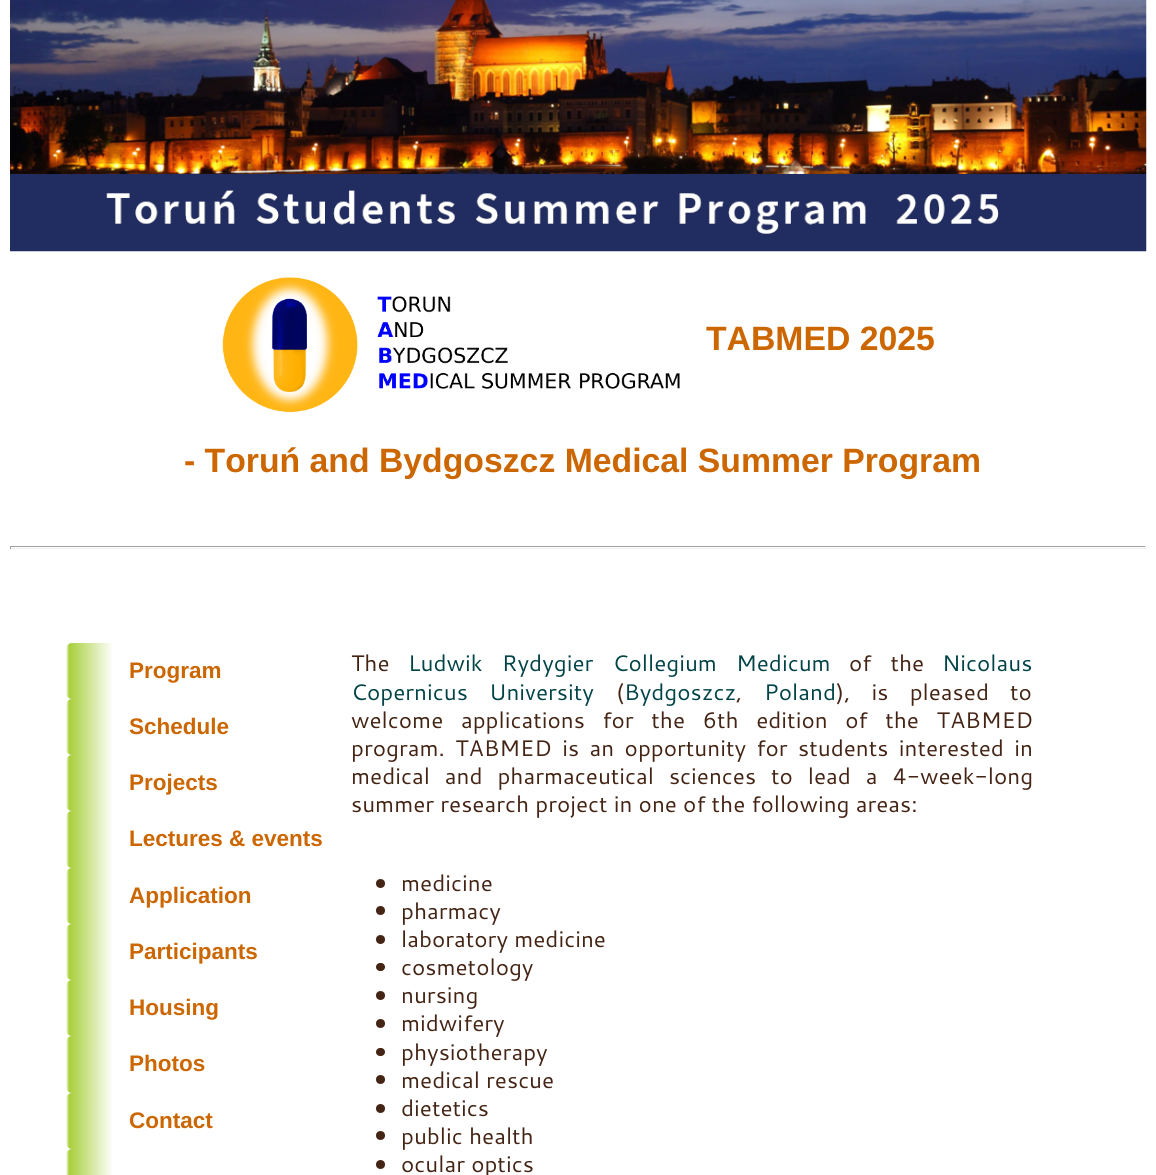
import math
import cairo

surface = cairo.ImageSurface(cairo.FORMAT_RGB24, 1156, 1175)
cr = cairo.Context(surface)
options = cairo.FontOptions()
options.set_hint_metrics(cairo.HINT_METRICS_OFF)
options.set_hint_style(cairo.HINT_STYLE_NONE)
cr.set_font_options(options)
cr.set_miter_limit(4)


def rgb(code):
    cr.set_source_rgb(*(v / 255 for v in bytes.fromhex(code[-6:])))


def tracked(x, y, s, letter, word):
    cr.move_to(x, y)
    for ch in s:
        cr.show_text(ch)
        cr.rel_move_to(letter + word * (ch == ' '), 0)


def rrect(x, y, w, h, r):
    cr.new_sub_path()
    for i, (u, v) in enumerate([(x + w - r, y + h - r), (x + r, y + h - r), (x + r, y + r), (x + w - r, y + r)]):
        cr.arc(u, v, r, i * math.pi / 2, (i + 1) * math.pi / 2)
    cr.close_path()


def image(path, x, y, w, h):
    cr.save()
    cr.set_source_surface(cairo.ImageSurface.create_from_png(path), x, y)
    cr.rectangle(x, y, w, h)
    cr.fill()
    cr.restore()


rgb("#ffffff")
cr.paint()
image("img/1.png", 10, 0, 1137, 252)
image("img/2.png", 222, 277, 458, 136)
for x, y, w, h, color in [
    (10, 546, 1136, 1, "#9f9f9f"),
    (1145, 546, 1, 3, "#eeeeee"),
    (10, 548, 1136, 1, "#eeeeee"),
    (10, 546, 1, 3, "#9f9f9f"),
]:
    rgb(color)
    cr.rectangle(x, y, w, h)
    cr.fill()
gradient = cairo.LinearGradient(66, 671, 379, 671)
gradient.add_color_stop_rgba(0, 1, 1, 1, 1)
gradient.add_color_stop_rgba(0.01, 0.655, 0.812, 0.227, 1)
gradient.add_color_stop_rgba(0.15, 1, 1, 1, 1)
gradient.add_color_stop_rgba(1, 1, 1, 1, 1)
cr.set_source(gradient)
rrect(66, 643, 313, 56, 6)
cr.fill()
gradient = cairo.LinearGradient(66, 727, 379, 727)
gradient.add_color_stop_rgba(0, 1, 1, 1, 1)
gradient.add_color_stop_rgba(0.01, 0.655, 0.812, 0.227, 1)
gradient.add_color_stop_rgba(0.15, 1, 1, 1, 1)
gradient.add_color_stop_rgba(1, 1, 1, 1, 1)
cr.set_source(gradient)
rrect(66, 699, 313, 56, 6)
cr.fill()
gradient = cairo.LinearGradient(66, 783, 379, 783)
gradient.add_color_stop_rgba(0, 1, 1, 1, 1)
gradient.add_color_stop_rgba(0.01, 0.655, 0.812, 0.227, 1)
gradient.add_color_stop_rgba(0.15, 1, 1, 1, 1)
gradient.add_color_stop_rgba(1, 1, 1, 1, 1)
cr.set_source(gradient)
rrect(66, 755, 313, 56, 6)
cr.fill()
gradient = cairo.LinearGradient(66, 839, 379, 839)
gradient.add_color_stop_rgba(0, 1, 1, 1, 1)
gradient.add_color_stop_rgba(0.01, 0.655, 0.812, 0.227, 1)
gradient.add_color_stop_rgba(0.15, 1, 1, 1, 1)
gradient.add_color_stop_rgba(1, 1, 1, 1, 1)
cr.set_source(gradient)
rrect(66, 811, 313, 57, 6)
cr.fill()
gradient = cairo.LinearGradient(66, 896, 379, 896)
gradient.add_color_stop_rgba(0, 1, 1, 1, 1)
gradient.add_color_stop_rgba(0.01, 0.655, 0.812, 0.227, 1)
gradient.add_color_stop_rgba(0.15, 1, 1, 1, 1)
gradient.add_color_stop_rgba(1, 1, 1, 1, 1)
cr.set_source(gradient)
rrect(66, 868, 313, 56, 6)
cr.fill()
gradient = cairo.LinearGradient(66, 952, 379, 952)
gradient.add_color_stop_rgba(0, 1, 1, 1, 1)
gradient.add_color_stop_rgba(0.01, 0.655, 0.812, 0.227, 1)
gradient.add_color_stop_rgba(0.15, 1, 1, 1, 1)
gradient.add_color_stop_rgba(1, 1, 1, 1, 1)
cr.set_source(gradient)
rrect(66, 924, 313, 56, 6)
cr.fill()
gradient = cairo.LinearGradient(66, 1008, 379, 1008)
gradient.add_color_stop_rgba(0, 1, 1, 1, 1)
gradient.add_color_stop_rgba(0.01, 0.655, 0.812, 0.227, 1)
gradient.add_color_stop_rgba(0.15, 1, 1, 1, 1)
gradient.add_color_stop_rgba(1, 1, 1, 1, 1)
cr.set_source(gradient)
rrect(66, 980, 313, 56, 6)
cr.fill()
gradient = cairo.LinearGradient(66, 1064, 379, 1064)
gradient.add_color_stop_rgba(0, 1, 1, 1, 1)
gradient.add_color_stop_rgba(0.01, 0.655, 0.812, 0.227, 1)
gradient.add_color_stop_rgba(0.15, 1, 1, 1, 1)
gradient.add_color_stop_rgba(1, 1, 1, 1, 1)
cr.set_source(gradient)
rrect(66, 1036, 313, 57, 6)
cr.fill()
gradient = cairo.LinearGradient(66, 1121, 379, 1121)
gradient.add_color_stop_rgba(0, 1, 1, 1, 1)
gradient.add_color_stop_rgba(0.01, 0.655, 0.812, 0.227, 1)
gradient.add_color_stop_rgba(0.15, 1, 1, 1, 1)
gradient.add_color_stop_rgba(1, 1, 1, 1, 1)
cr.set_source(gradient)
rrect(66, 1093, 313, 56, 6)
cr.fill()
gradient = cairo.LinearGradient(66, 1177, 379, 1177)
gradient.add_color_stop_rgba(0, 1, 1, 1, 1)
gradient.add_color_stop_rgba(0.01, 0.655, 0.812, 0.227, 1)
gradient.add_color_stop_rgba(0.15, 1, 1, 1, 1)
gradient.add_color_stop_rgba(1, 1, 1, 1, 1)
cr.set_source(gradient)
rrect(66, 1149, 313, 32, 6)
cr.fill()
rgb("#442414")
cr.arc(380.5, 883.5, 4.5, 0, 2 * math.pi)
cr.fill()
cr.arc(380.5, 910.5, 4.5, 0, 2 * math.pi)
cr.fill()
cr.arc(380.5, 939.5, 4.5, 0, 2 * math.pi)
cr.fill()
rrect(376, 963, 9, 8, 4)
cr.fill()
cr.arc(380.5, 995.5, 4.5, 0, 2 * math.pi)
cr.fill()
cr.arc(380.5, 1023.5, 4.5, 0, 2 * math.pi)
cr.fill()
rrect(376, 1048, 9, 8, 4)
cr.fill()
cr.arc(380.5, 1079.5, 4.5, 0, 2 * math.pi)
cr.fill()
cr.arc(380.5, 1108.5, 4.5, 0, 2 * math.pi)
cr.fill()
cr.arc(380.5, 1135.5, 4.5, 0, 2 * math.pi)
cr.fill()
cr.arc(380.5, 1164.5, 4.5, 0, 2 * math.pi)
cr.fill()
cr.select_font_face("Liberation Sans", cairo.FONT_SLANT_NORMAL, cairo.FONT_WEIGHT_BOLD)
cr.set_font_size(33.75)
rgb("#cc6600")
cr.move_to(706, 350)
cr.show_text("TABMED 2025")
cr.move_to(184, 472)
cr.show_text("- Toruń and Bydgoszcz Medical Summer Program")
cr.set_font_size(22.5)
for x, y, s in [
    (129, 678, "Program"),
    (129, 734, "Schedule"),
    (129, 790, "Projects"),
    (129, 846, "Lectures & events"),
    (129, 903, "Application"),
    (129, 959, "Participants"),
    (129, 1015, "Housing"),
    (129, 1071, "Photos"),
    (129, 1128, "Contact"),
]:
    cr.move_to(x, y)
    cr.show_text(s)
cr.select_font_face("Cantarell")
rgb("#442414")
cr.move_to(351, 671)
cr.show_text("The")
rgb("#014346")
tracked(408, 671, "Ludwik Rydygier Collegium Medicum", 0, 13)
rgb("#442414")
tracked(849, 671, "of the", 0, 13)
rgb("#014346")
cr.move_to(942, 671)
cr.show_text("Nicolaus")
tracked(351, 700, "Copernicus University", 0, 15)
rgb("#442414")
cr.move_to(616, 700)
cr.show_text("(")
rgb("#014346")
cr.move_to(624, 700)
cr.show_text("Bydgoszcz")
rgb("#442414")
cr.move_to(736, 700)
cr.show_text(",")
rgb("#014346")
cr.move_to(764, 700)
cr.show_text("Poland")
rgb("#442414")
tracked(836, 700, "), is pleased to", 0, 15)
tracked(351, 728, "welcome applications for the 6th edition of the TABMED", 0, 11.5)
tracked(351, 756, "program. TABMED is an opportunity for students interested in", 0, 4.25)
tracked(351, 784, "medical and pharmaceutical sciences to lead a 4-week-long", 0, 8.75)
for x, y, s in [
    (351, 812, "summer research project in one of the following areas:"),
    (401, 891, "medicine"),
    (401, 919, "pharmacy"),
    (401, 947, "laboratory medicine"),
    (401, 975, "cosmetology"),
    (401, 1003, "nursing"),
    (401, 1031, "midwifery"),
    (401, 1060, "physiotherapy"),
    (401, 1088, "medical rescue"),
    (401, 1116, "dietetics"),
    (401, 1144, "public health"),
    (401, 1172, "ocular optics"),
]:
    cr.move_to(x, y)
    cr.show_text(s)
surface.write_to_png("page.png")
